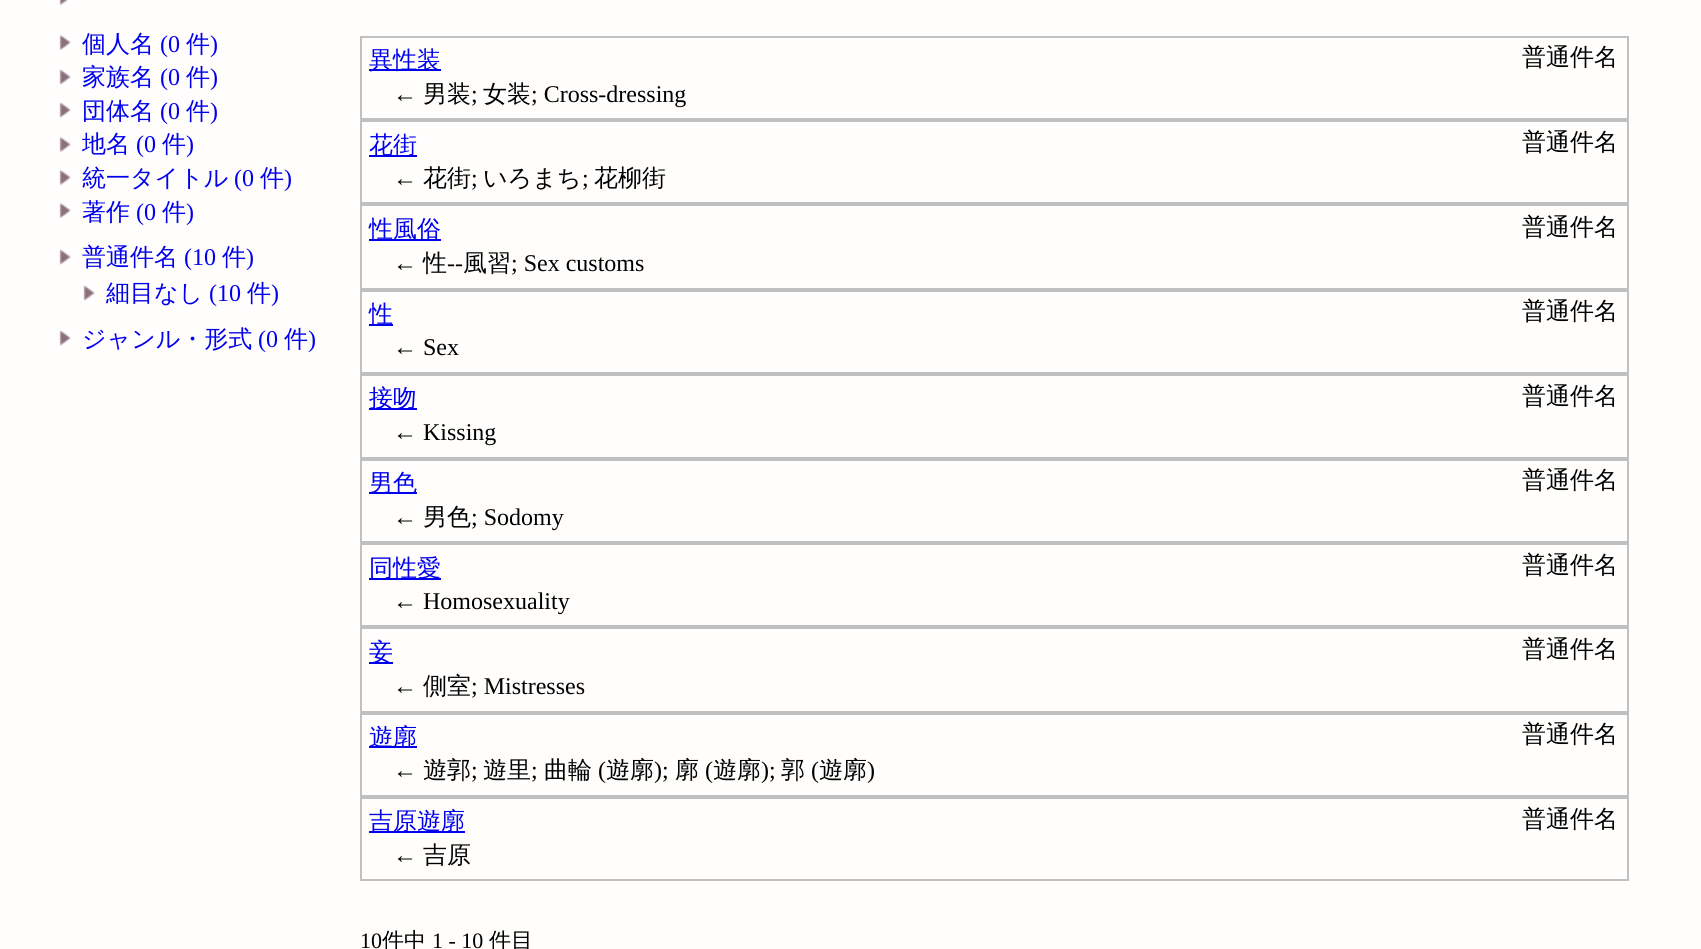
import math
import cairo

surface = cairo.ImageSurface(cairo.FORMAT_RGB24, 1701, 949)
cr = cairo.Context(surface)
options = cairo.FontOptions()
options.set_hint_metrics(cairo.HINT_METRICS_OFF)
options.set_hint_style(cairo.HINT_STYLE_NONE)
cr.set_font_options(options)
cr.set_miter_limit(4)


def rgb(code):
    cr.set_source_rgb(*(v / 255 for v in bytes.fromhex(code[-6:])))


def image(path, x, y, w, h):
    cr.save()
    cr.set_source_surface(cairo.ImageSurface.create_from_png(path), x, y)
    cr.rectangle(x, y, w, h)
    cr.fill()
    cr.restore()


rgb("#fffefd")
cr.paint()
image("img/1.png", 59, 0, 10, 6)
image("img/2.png", 59, 34, 12, 17)
image("img/3.png", 59, 69, 12, 16)
image("img/3.png", 59, 102, 12, 16)
image("img/2.png", 59, 136, 12, 17)
image("img/2.png", 59, 169, 12, 17)
image("img/2.png", 59, 202, 12, 17)
image("img/3.png", 59, 249, 12, 16)
image("img/3.png", 83, 285, 12, 16)
image("img/3.png", 59, 330, 12, 16)
cr.rectangle(361, 37, 1267, 82)
rgb("#c0c0c0")
cr.stroke()
rgb("#0000ee")
cr.rectangle(369, 69, 72, 2)
cr.fill()
cr.rectangle(361, 121, 1267, 82)
rgb("#c0c0c0")
cr.stroke()
rgb("#0000ee")
cr.rectangle(369, 155, 48, 2)
cr.fill()
cr.rectangle(361, 205, 1267, 84)
rgb("#c0c0c0")
cr.stroke()
rgb("#0000ee")
cr.rectangle(369, 239, 72, 2)
cr.fill()
cr.rectangle(361, 291, 1267, 82)
rgb("#c0c0c0")
cr.stroke()
rgb("#0000ee")
cr.rectangle(369, 324, 24, 2)
cr.fill()
cr.rectangle(361, 375, 1267, 83)
rgb("#c0c0c0")
cr.stroke()
rgb("#0000ee")
cr.rectangle(369, 408, 48, 2)
cr.fill()
cr.rectangle(361, 460, 1267, 82)
rgb("#c0c0c0")
cr.stroke()
rgb("#0000ee")
cr.rectangle(369, 492, 48, 2)
cr.fill()
cr.rectangle(361, 544, 1267, 82)
rgb("#c0c0c0")
cr.stroke()
rgb("#0000ee")
cr.rectangle(369, 578, 72, 2)
cr.fill()
cr.rectangle(361, 628, 1267, 84)
rgb("#c0c0c0")
cr.stroke()
rgb("#0000ee")
cr.rectangle(369, 662, 24, 2)
cr.fill()
cr.rectangle(361, 714, 1267, 82)
rgb("#c0c0c0")
cr.stroke()
rgb("#0000ee")
cr.rectangle(369, 746, 48, 2)
cr.fill()
cr.rectangle(361, 798, 1267, 82)
rgb("#c0c0c0")
cr.stroke()
rgb("#0000ee")
cr.rectangle(369, 831, 96, 2)
cr.fill()
cr.select_font_face("WenQuanYi Zen Hei Medium")
cr.set_font_size(24)
cr.move_to(82, 52)
cr.show_text("個人名")
cr.select_font_face("Liberation Serif")
cr.move_to(160, 52)
cr.show_text("(0")
cr.select_font_face("WenQuanYi Zen Hei Medium")
cr.move_to(186, 52)
cr.show_text("件")
cr.select_font_face("Liberation Serif")
cr.move_to(210, 52)
cr.show_text(")")
cr.select_font_face("WenQuanYi Zen Hei Medium")
cr.move_to(82, 85)
cr.show_text("家族名")
cr.select_font_face("Liberation Serif")
cr.move_to(160, 85)
cr.show_text("(0")
cr.select_font_face("WenQuanYi Zen Hei Medium")
cr.move_to(186, 85)
cr.show_text("件")
cr.select_font_face("Liberation Serif")
cr.move_to(210, 85)
cr.show_text(")")
cr.select_font_face("WenQuanYi Zen Hei Medium")
cr.move_to(82, 119)
cr.show_text("団体名")
cr.select_font_face("Liberation Serif")
cr.move_to(160, 119)
cr.show_text("(0")
cr.select_font_face("WenQuanYi Zen Hei Medium")
cr.move_to(186, 119)
cr.show_text("件")
cr.select_font_face("Liberation Serif")
cr.move_to(210, 119)
cr.show_text(")")
cr.select_font_face("WenQuanYi Zen Hei Medium")
cr.move_to(82, 152)
cr.show_text("地名")
cr.select_font_face("Liberation Serif")
cr.move_to(136, 152)
cr.show_text("(0")
cr.select_font_face("WenQuanYi Zen Hei Medium")
cr.move_to(162, 152)
cr.show_text("件")
cr.select_font_face("Liberation Serif")
cr.move_to(186, 152)
cr.show_text(")")
cr.select_font_face("WenQuanYi Zen Hei Medium")
cr.move_to(82, 186)
cr.show_text("統一タイトル")
cr.select_font_face("Liberation Serif")
cr.move_to(234, 186)
cr.show_text("(0")
cr.select_font_face("WenQuanYi Zen Hei Medium")
cr.move_to(260, 186)
cr.show_text("件")
cr.select_font_face("Liberation Serif")
cr.move_to(284, 186)
cr.show_text(")")
cr.select_font_face("WenQuanYi Zen Hei Medium")
cr.move_to(82, 220)
cr.show_text("著作")
cr.select_font_face("Liberation Serif")
cr.move_to(136, 220)
cr.show_text("(0")
cr.select_font_face("WenQuanYi Zen Hei Medium")
cr.move_to(162, 220)
cr.show_text("件")
cr.select_font_face("Liberation Serif")
cr.move_to(186, 220)
cr.show_text(")")
cr.select_font_face("WenQuanYi Zen Hei Medium")
cr.move_to(82, 265)
cr.show_text("普通件名")
cr.select_font_face("Liberation Serif")
cr.move_to(184, 265)
cr.show_text("(10")
cr.select_font_face("WenQuanYi Zen Hei Medium")
cr.move_to(222, 265)
cr.show_text("件")
cr.select_font_face("Liberation Serif")
cr.move_to(246, 265)
cr.show_text(")")
cr.select_font_face("WenQuanYi Zen Hei Medium")
cr.move_to(106, 301)
cr.show_text("細目なし")
cr.select_font_face("Liberation Serif")
cr.move_to(209, 301)
cr.show_text("(10")
cr.select_font_face("WenQuanYi Zen Hei Medium")
cr.move_to(247, 301)
cr.show_text("件")
cr.select_font_face("Liberation Serif")
cr.move_to(271, 301)
cr.show_text(")")
cr.select_font_face("WenQuanYi Zen Hei Medium")
cr.move_to(82, 347)
cr.show_text("ジャンル・形式")
cr.select_font_face("Liberation Serif")
cr.move_to(258, 347)
cr.show_text("(0")
cr.select_font_face("WenQuanYi Zen Hei Medium")
cr.move_to(284, 347)
cr.show_text("件")
cr.select_font_face("Liberation Serif")
cr.move_to(308, 347)
cr.show_text(")")
cr.select_font_face("WenQuanYi Zen Hei Medium")
cr.move_to(369, 68)
cr.show_text("異性装")
rgb("#000000")
cr.move_to(1522, 65)
cr.show_text("普通件名")
cr.select_font_face("Liberation Serif")
cr.move_to(393, 102)
cr.show_text("←")
cr.select_font_face("WenQuanYi Zen Hei Medium")
cr.move_to(423, 102)
cr.show_text("男装")
cr.select_font_face("Liberation Serif")
cr.move_to(471, 102)
cr.show_text(";")
cr.select_font_face("WenQuanYi Zen Hei Medium")
cr.move_to(483, 102)
cr.show_text("女装")
cr.select_font_face("Liberation Serif")
cr.move_to(531, 102)
cr.show_text("; Cross-dressing")
cr.select_font_face("WenQuanYi Zen Hei Medium")
rgb("#0000ee")
cr.move_to(369, 153)
cr.show_text("花街")
rgb("#000000")
cr.move_to(1522, 150)
cr.show_text("普通件名")
cr.select_font_face("Liberation Serif")
cr.move_to(393, 186)
cr.show_text("←")
cr.select_font_face("WenQuanYi Zen Hei Medium")
cr.move_to(423, 186)
cr.show_text("花街")
cr.select_font_face("Liberation Serif")
cr.move_to(471, 186)
cr.show_text(";")
cr.select_font_face("WenQuanYi Zen Hei Medium")
cr.move_to(483, 186)
cr.show_text("いろまち")
cr.select_font_face("Liberation Serif")
cr.move_to(582, 186)
cr.show_text(";")
cr.select_font_face("WenQuanYi Zen Hei Medium")
cr.move_to(594, 186)
cr.show_text("花柳街")
rgb("#0000ee")
cr.move_to(369, 237)
cr.show_text("性風俗")
rgb("#000000")
cr.move_to(1522, 235)
cr.show_text("普通件名")
cr.select_font_face("Liberation Serif")
cr.move_to(393, 271)
cr.show_text("←")
cr.select_font_face("WenQuanYi Zen Hei Medium")
cr.move_to(423, 271)
cr.show_text("性")
cr.select_font_face("Liberation Serif")
cr.move_to(447, 271)
cr.show_text("--")
cr.select_font_face("WenQuanYi Zen Hei Medium")
cr.move_to(463, 271)
cr.show_text("風習")
cr.select_font_face("Liberation Serif")
cr.move_to(511, 271)
cr.show_text("; Sex customs")
cr.select_font_face("WenQuanYi Zen Hei Medium")
rgb("#0000ee")
cr.move_to(369, 322)
cr.show_text("性")
rgb("#000000")
cr.move_to(1522, 319)
cr.show_text("普通件名")
cr.select_font_face("Liberation Serif")
cr.move_to(393, 355)
cr.show_text("← Sex")
cr.select_font_face("WenQuanYi Zen Hei Medium")
rgb("#0000ee")
cr.move_to(369, 406)
cr.show_text("接吻")
rgb("#000000")
cr.move_to(1522, 404)
cr.show_text("普通件名")
cr.select_font_face("Liberation Serif")
cr.move_to(393, 440)
cr.show_text("← Kissing")
cr.select_font_face("WenQuanYi Zen Hei Medium")
rgb("#0000ee")
cr.move_to(369, 491)
cr.show_text("男色")
rgb("#000000")
cr.move_to(1522, 488)
cr.show_text("普通件名")
cr.select_font_face("Liberation Serif")
cr.move_to(393, 525)
cr.show_text("←")
cr.select_font_face("WenQuanYi Zen Hei Medium")
cr.move_to(423, 525)
cr.show_text("男色")
cr.select_font_face("Liberation Serif")
cr.move_to(471, 525)
cr.show_text("; Sodomy")
cr.select_font_face("WenQuanYi Zen Hei Medium")
rgb("#0000ee")
cr.move_to(369, 576)
cr.show_text("同性愛")
rgb("#000000")
cr.move_to(1522, 573)
cr.show_text("普通件名")
cr.select_font_face("Liberation Serif")
cr.move_to(393, 609)
cr.show_text("← Homosexuality")
cr.select_font_face("WenQuanYi Zen Hei Medium")
rgb("#0000ee")
cr.move_to(369, 660)
cr.show_text("妾")
rgb("#000000")
cr.move_to(1522, 657)
cr.show_text("普通件名")
cr.select_font_face("Liberation Serif")
cr.move_to(393, 694)
cr.show_text("←")
cr.select_font_face("WenQuanYi Zen Hei Medium")
cr.move_to(423, 694)
cr.show_text("側室")
cr.select_font_face("Liberation Serif")
cr.move_to(471, 694)
cr.show_text("; Mistresses")
cr.select_font_face("WenQuanYi Zen Hei Medium")
rgb("#0000ee")
cr.move_to(369, 745)
cr.show_text("遊廓")
rgb("#000000")
cr.move_to(1522, 742)
cr.show_text("普通件名")
cr.select_font_face("Liberation Serif")
cr.move_to(393, 778)
cr.show_text("←")
cr.select_font_face("WenQuanYi Zen Hei Medium")
cr.move_to(423, 778)
cr.show_text("遊郭")
cr.select_font_face("Liberation Serif")
cr.move_to(471, 778)
cr.show_text(";")
cr.select_font_face("WenQuanYi Zen Hei Medium")
cr.move_to(483, 778)
cr.show_text("遊里")
cr.select_font_face("Liberation Serif")
cr.move_to(531, 778)
cr.show_text(";")
cr.select_font_face("WenQuanYi Zen Hei Medium")
cr.move_to(544, 778)
cr.show_text("曲輪")
cr.select_font_face("Liberation Serif")
cr.move_to(598, 778)
cr.show_text("(")
cr.select_font_face("WenQuanYi Zen Hei Medium")
cr.move_to(606, 778)
cr.show_text("遊廓")
cr.select_font_face("Liberation Serif")
cr.move_to(654, 778)
cr.show_text(");")
cr.select_font_face("WenQuanYi Zen Hei Medium")
cr.move_to(675, 778)
cr.show_text("廓")
cr.select_font_face("Liberation Serif")
cr.move_to(705, 778)
cr.show_text("(")
cr.select_font_face("WenQuanYi Zen Hei Medium")
cr.move_to(713, 778)
cr.show_text("遊廓")
cr.select_font_face("Liberation Serif")
cr.move_to(761, 778)
cr.show_text(");")
cr.select_font_face("WenQuanYi Zen Hei Medium")
cr.move_to(781, 778)
cr.show_text("郭")
cr.select_font_face("Liberation Serif")
cr.move_to(811, 778)
cr.show_text("(")
cr.select_font_face("WenQuanYi Zen Hei Medium")
cr.move_to(819, 778)
cr.show_text("遊廓")
cr.select_font_face("Liberation Serif")
cr.move_to(867, 778)
cr.show_text(")")
cr.select_font_face("WenQuanYi Zen Hei Medium")
rgb("#0000ee")
cr.move_to(369, 829)
cr.show_text("吉原遊廓")
rgb("#000000")
cr.move_to(1522, 827)
cr.show_text("普通件名")
cr.select_font_face("Liberation Serif")
cr.move_to(393, 863)
cr.show_text("←")
cr.select_font_face("WenQuanYi Zen Hei Medium")
cr.move_to(423, 863)
cr.show_text("吉原")
cr.select_font_face("Liberation Serif")
cr.set_font_size(22)
cr.move_to(360, 948)
cr.show_text("10")
cr.select_font_face("WenQuanYi Zen Hei Medium")
cr.move_to(382, 948)
cr.show_text("件中")
cr.select_font_face("Liberation Serif")
cr.move_to(432, 948)
cr.show_text("1 - 10")
cr.select_font_face("WenQuanYi Zen Hei Medium")
cr.move_to(489, 948)
cr.show_text("件目")
surface.write_to_png("page.png")
